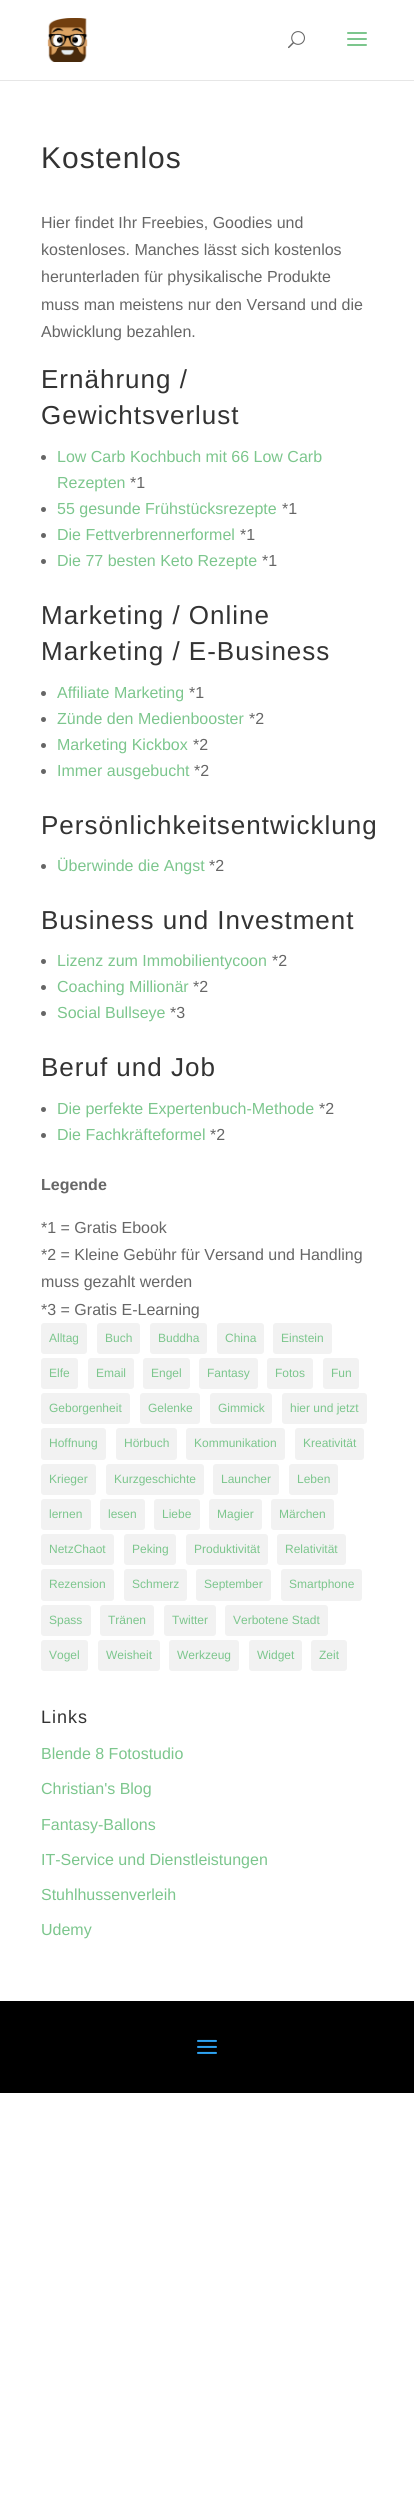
import math
import cairo

surface = cairo.ImageSurface(cairo.FORMAT_RGB24, 414, 2499)
cr = cairo.Context(surface)
options = cairo.FontOptions()
options.set_hint_metrics(cairo.HINT_METRICS_OFF)
options.set_hint_style(cairo.HINT_STYLE_NONE)
cr.set_font_options(options)
cr.set_miter_limit(4)


def rgb(code):
    cr.set_source_rgb(*(v / 255 for v in bytes.fromhex(code[-6:])))


def tracked(x, y, s, letter, word):
    cr.move_to(x, y)
    for ch in s:
        cr.show_text(ch)
        cr.rel_move_to(letter + word * (ch == ' '), 0)


def rrect(x, y, w, h, r):
    cr.new_sub_path()
    for i, (u, v) in enumerate([(x + w - r, y + h - r), (x + r, y + h - r), (x + r, y + r), (x + w - r, y + r)]):
        cr.arc(u, v, r, i * math.pi / 2, (i + 1) * math.pi / 2)
    cr.close_path()


def image(path, x, y, w, h):
    cr.save()
    cr.set_source_surface(cairo.ImageSurface.create_from_png(path), x, y)
    cr.rectangle(x, y, w, h)
    cr.fill()
    cr.restore()


rgb("#ffffff")
cr.paint()
rgb("#e6e6e6")
cr.rectangle(0, 80, 414, 1)
cr.fill()
image("img/1.png", 47, 18, 41, 44)
image("img/2.png", 288, 31, 17, 18)
image("img/3.png", 347, 32, 20, 14)
rgb("#666666")
cr.arc(43.5, 457.5, 2.5, 0, 2 * math.pi)
cr.fill()
cr.arc(43.5, 509.5, 2.5, 0, 2 * math.pi)
cr.fill()
cr.arc(43.5, 535.5, 2.5, 0, 2 * math.pi)
cr.fill()
cr.arc(43.5, 561.5, 2.5, 0, 2 * math.pi)
cr.fill()
cr.arc(43.5, 693.5, 2.5, 0, 2 * math.pi)
cr.fill()
cr.arc(43.5, 719.5, 2.5, 0, 2 * math.pi)
cr.fill()
cr.arc(43.5, 745.5, 2.5, 0, 2 * math.pi)
cr.fill()
cr.arc(43.5, 771.5, 2.5, 0, 2 * math.pi)
cr.fill()
cr.arc(43.5, 866.5, 2.5, 0, 2 * math.pi)
cr.fill()
cr.arc(43.5, 961.5, 2.5, 0, 2 * math.pi)
cr.fill()
cr.arc(43.5, 987.5, 2.5, 0, 2 * math.pi)
cr.fill()
cr.arc(43.5, 1013.5, 2.5, 0, 2 * math.pi)
cr.fill()
cr.arc(43.5, 1109.5, 2.5, 0, 2 * math.pi)
cr.fill()
cr.arc(43.5, 1135.5, 2.5, 0, 2 * math.pi)
cr.fill()
rgb("#f2f2f2")
rrect(41, 1323, 46, 31, 3)
cr.fill()
rrect(97, 1323, 43, 31, 3)
cr.fill()
rrect(150, 1323, 57, 31, 3)
cr.fill()
rrect(217, 1323, 47, 31, 3)
cr.fill()
rrect(273, 1323, 59, 31, 3)
cr.fill()
rrect(41, 1358, 37, 31, 3)
cr.fill()
rrect(88, 1358, 46, 31, 3)
cr.fill()
rrect(143, 1358, 47, 31, 3)
cr.fill()
rrect(199, 1358, 59, 31, 3)
cr.fill()
rrect(267, 1358, 46, 31, 3)
cr.fill()
rrect(323, 1358, 36, 31, 3)
cr.fill()
rrect(41, 1393, 89, 31, 3)
cr.fill()
rrect(140, 1393, 60, 31, 3)
cr.fill()
rrect(210, 1393, 62, 31, 3)
cr.fill()
rrect(282, 1393, 85, 31, 3)
cr.fill()
rrect(41, 1428, 65, 32, 3)
cr.fill()
rrect(116, 1428, 61, 32, 3)
cr.fill()
rrect(186, 1428, 99, 32, 3)
cr.fill()
rrect(295, 1428, 69, 32, 3)
cr.fill()
rrect(41, 1464, 55, 31, 3)
cr.fill()
rrect(106, 1464, 98, 31, 3)
cr.fill()
rrect(213, 1464, 66, 31, 3)
cr.fill()
rrect(289, 1464, 49, 31, 3)
cr.fill()
rrect(41, 1499, 50, 31, 3)
cr.fill()
rrect(100, 1499, 45, 31, 3)
cr.fill()
rrect(154, 1499, 46, 31, 3)
cr.fill()
rrect(209, 1499, 53, 31, 3)
cr.fill()
rrect(271, 1499, 63, 31, 3)
cr.fill()
rrect(41, 1534, 73, 31, 3)
cr.fill()
rrect(124, 1534, 52, 31, 3)
cr.fill()
rrect(186, 1534, 82, 31, 3)
cr.fill()
rrect(277, 1534, 69, 31, 3)
cr.fill()
rrect(41, 1569, 73, 32, 3)
cr.fill()
rrect(124, 1569, 63, 32, 3)
cr.fill()
rrect(196, 1569, 75, 32, 3)
cr.fill()
rrect(281, 1569, 81, 32, 3)
cr.fill()
rrect(41, 1605, 50, 31, 3)
cr.fill()
rrect(100, 1605, 54, 31, 3)
cr.fill()
rrect(164, 1605, 52, 31, 3)
cr.fill()
rrect(225, 1605, 103, 31, 3)
cr.fill()
rrect(41, 1640, 47, 31, 3)
cr.fill()
rrect(98, 1640, 62, 31, 3)
cr.fill()
rrect(169, 1640, 70, 31, 3)
cr.fill()
rrect(249, 1640, 53, 31, 3)
cr.fill()
rrect(311, 1640, 36, 31, 3)
cr.fill()
rgb("#000000")
cr.rectangle(0, 2001, 414, 92)
cr.fill()
image("img/4.png", 197, 2039, 20, 15)
cr.select_font_face("Liberation Sans")
cr.set_font_size(30)
rgb("#333333")
tracked(41, 168, "Kostenlos", 1, 0)
cr.set_font_size(16)
rgb("#666666")
for x, y, s in [
    (41, 228, "Hier findet Ihr Freebies, Goodies und"),
    (41, 255, "kostenloses. Manches lässt sich kostenlos"),
    (41, 282, "herunterladen für physikalische Produkte"),
    (41, 310, "muss man meistens nur den Versand und die"),
    (41, 337, "Abwicklung bezahlen."),
]:
    cr.move_to(x, y)
    cr.show_text(s)
cr.set_font_size(26)
rgb("#333333")
tracked(41, 388, "Ernährung /", 1, 0)
tracked(41, 424, "Gewichtsverlust", 1, 0)
cr.set_font_size(16)
rgb("#7cc68d")
cr.move_to(57, 462)
cr.show_text("Low Carb Kochbuch mit 66 Low Carb")
cr.move_to(57, 488)
cr.show_text("Rezepten")
rgb("#666666")
cr.move_to(130, 488)
cr.show_text("*1")
rgb("#7cc68d")
cr.move_to(57, 514)
cr.show_text("55 gesunde Frühstücksrezepte")
rgb("#666666")
cr.move_to(282, 514)
cr.show_text("*1")
rgb("#7cc68d")
cr.move_to(57, 540)
cr.show_text("Die Fettverbrennerformel")
rgb("#666666")
cr.move_to(240, 540)
cr.show_text("*1")
rgb("#7cc68d")
cr.move_to(57, 566)
cr.show_text("Die 77 besten Keto Rezepte")
rgb("#666666")
cr.move_to(262, 566)
cr.show_text("*1")
cr.set_font_size(26)
rgb("#333333")
tracked(41, 624, "Marketing / Online", 1, 0)
tracked(41, 660, "Marketing / E-Business", 1, 0)
cr.set_font_size(16)
rgb("#7cc68d")
cr.move_to(57, 698)
cr.show_text("Affiliate Marketing")
rgb("#666666")
cr.move_to(189, 698)
cr.show_text("*1")
rgb("#7cc68d")
cr.move_to(57, 724)
cr.show_text("Zünde den Medienbooster")
rgb("#666666")
cr.move_to(249, 724)
cr.show_text("*2")
rgb("#7cc68d")
cr.move_to(57, 750)
cr.show_text("Marketing Kickbox")
rgb("#666666")
cr.move_to(193, 750)
cr.show_text("*2")
rgb("#7cc68d")
cr.move_to(57, 776)
cr.show_text("Immer ausgebucht")
rgb("#666666")
cr.move_to(194, 776)
cr.show_text("*2")
cr.set_font_size(26)
rgb("#333333")
tracked(41, 834, "Persönlichkeitsentwicklung", 1, 0)
cr.set_font_size(16)
rgb("#7cc68d")
cr.move_to(57, 871)
cr.show_text("Überwinde die Angst")
rgb("#666666")
cr.move_to(209, 871)
cr.show_text("*2")
cr.set_font_size(26)
rgb("#333333")
tracked(41, 929, "Business und Investment", 1, 0)
cr.set_font_size(16)
rgb("#7cc68d")
cr.move_to(57, 966)
cr.show_text("Lizenz zum Immobilientycoon")
rgb("#666666")
cr.move_to(272, 966)
cr.show_text("*2")
rgb("#7cc68d")
cr.move_to(57, 992)
cr.show_text("Coaching Millionär")
rgb("#666666")
cr.move_to(193, 992)
cr.show_text("*2")
rgb("#7cc68d")
cr.move_to(57, 1018)
cr.show_text("Social Bullseye")
rgb("#666666")
cr.move_to(170, 1018)
cr.show_text("*3")
cr.set_font_size(26)
rgb("#333333")
tracked(41, 1076, "Beruf und Job", 1, 0)
cr.set_font_size(16)
rgb("#7cc68d")
cr.move_to(57, 1114)
cr.show_text("Die perfekte Expertenbuch-Methode")
rgb("#666666")
cr.move_to(319, 1114)
cr.show_text("*2")
rgb("#7cc68d")
cr.move_to(57, 1140)
cr.show_text("Die Fachkräfteformel")
rgb("#666666")
cr.move_to(210, 1140)
cr.show_text("*2")
cr.select_font_face("Liberation Sans", cairo.FONT_SLANT_NORMAL, cairo.FONT_WEIGHT_BOLD)
cr.move_to(41, 1190)
cr.show_text("Legende")
cr.select_font_face("Liberation Sans")
for x, y, s in [
    (41, 1233, "*1 = Gratis Ebook"),
    (41, 1260, "*2 = Kleine Gebühr für Versand und Handling"),
    (41, 1287, "muss gezahlt werden"),
    (41, 1315, "*3 = Gratis E-Learning"),
]:
    cr.move_to(x, y)
    cr.show_text(s)
cr.set_font_size(12)
rgb("#7cc68d")
for x, y, s in [
    (49, 1342, "Alltag"),
    (105, 1342, "Buch"),
    (158, 1342, "Buddha"),
    (225, 1342, "China"),
    (281, 1342, "Einstein"),
    (49, 1377, "Elfe"),
    (96, 1377, "Email"),
    (151, 1377, "Engel"),
    (207, 1377, "Fantasy"),
    (275, 1377, "Fotos"),
    (331, 1377, "Fun"),
    (49, 1412, "Geborgenheit"),
    (148, 1412, "Gelenke"),
    (218, 1412, "Gimmick"),
    (290, 1412, "hier und jetzt"),
    (49, 1447, "Hoffnung"),
    (124, 1447, "Hörbuch"),
    (194, 1447, "Kommunikation"),
    (303, 1447, "Kreativität"),
    (49, 1483, "Krieger"),
    (114, 1483, "Kurzgeschichte"),
    (221, 1483, "Launcher"),
    (297, 1483, "Leben"),
    (49, 1518, "lernen"),
    (108, 1518, "lesen"),
    (162, 1518, "Liebe"),
    (217, 1518, "Magier"),
    (279, 1518, "Märchen"),
    (49, 1553, "NetzChaot"),
    (132, 1553, "Peking"),
    (194, 1553, "Produktivität"),
    (285, 1553, "Relativität"),
    (49, 1588, "Rezension"),
    (132, 1588, "Schmerz"),
    (204, 1588, "September"),
    (289, 1588, "Smartphone"),
    (49, 1624, "Spass"),
    (108, 1624, "Tränen"),
    (172, 1624, "Twitter"),
    (233, 1624, "Verbotene Stadt"),
    (49, 1659, "Vogel"),
    (106, 1659, "Weisheit"),
    (177, 1659, "Werkzeug"),
    (257, 1659, "Widget"),
    (319, 1659, "Zeit"),
]:
    cr.move_to(x, y)
    cr.show_text(s)
cr.set_font_size(18)
rgb("#333333")
tracked(41, 1723, "Links", 1, 0)
cr.set_font_size(16)
rgb("#7cc68d")
for x, y, s in [
    (41, 1759, "Blende 8 Fotostudio"),
    (41, 1794, "Christian's Blog"),
    (41, 1830, "Fantasy-Ballons"),
    (41, 1865, "IT-Service und Dienstleistungen"),
    (41, 1900, "Stuhlhussenverleih"),
    (41, 1935, "Udemy"),
]:
    cr.move_to(x, y)
    cr.show_text(s)
surface.write_to_png("page.png")
